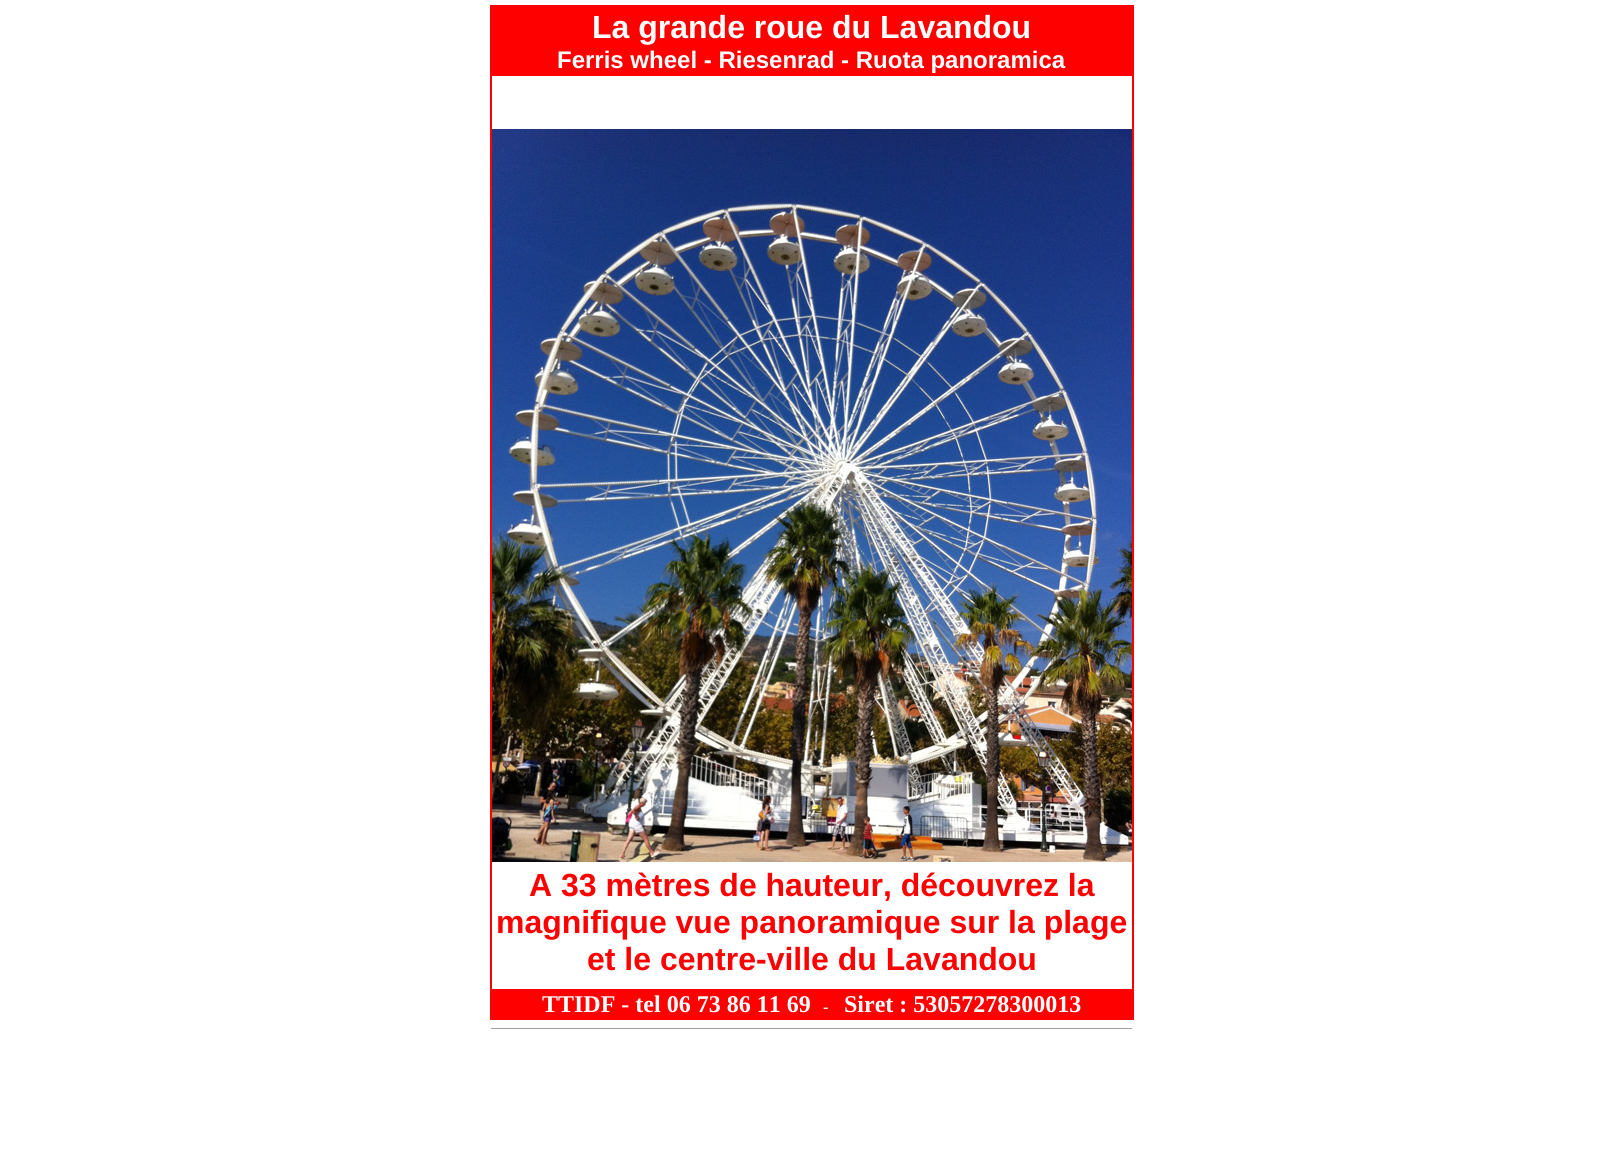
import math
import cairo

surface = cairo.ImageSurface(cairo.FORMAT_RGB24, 1623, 1158)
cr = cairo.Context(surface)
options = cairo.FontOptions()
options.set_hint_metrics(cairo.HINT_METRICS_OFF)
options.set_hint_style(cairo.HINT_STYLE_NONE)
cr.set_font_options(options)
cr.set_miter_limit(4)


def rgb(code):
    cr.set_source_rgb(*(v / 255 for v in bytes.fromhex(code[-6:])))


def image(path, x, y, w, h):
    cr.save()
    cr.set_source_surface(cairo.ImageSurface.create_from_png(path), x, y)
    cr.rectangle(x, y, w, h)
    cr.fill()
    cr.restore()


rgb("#ffffff")
cr.paint()
cr.rectangle(490.5, 5.5, 643, 1014)
rgb("#ff0000")
cr.set_line_width(1)
cr.stroke()
cr.rectangle(491.5, 6.5, 641, 983)
cr.stroke()
cr.rectangle(492.5, 7.5, 639, 68)
cr.stroke()
cr.rectangle(493, 8, 638, 67)
cr.fill()
image("img/1.png", 492, 129, 640, 733)
cr.rectangle(491.5, 990.5, 641, 28)
cr.stroke()
for x, y, w, h, color in [
    (492, 991, 640, 27, "#ff0000"),
    (491, 1028, 642, 1, "#9f9f9f"),
    (1132, 1028, 1, 1, "#eeeeee"),
]:
    rgb(color)
    cr.rectangle(x, y, w, h)
    cr.fill()
cr.select_font_face("Liberation Sans", cairo.FONT_SLANT_NORMAL, cairo.FONT_WEIGHT_BOLD)
cr.set_font_size(32)
rgb("#ffffff")
cr.move_to(592, 38)
cr.show_text("La grande roue du Lavandou")
cr.set_font_size(24)
cr.move_to(557, 68)
cr.show_text("Ferris wheel - Riesenrad - Ruota panoramica")
cr.set_font_size(32)
rgb("#ff0000")
for x, y, s in [
    (529, 896, "A 33 mètres de hauteur, découvrez la"),
    (496, 933, "magnifique vue panoramique sur la plage"),
    (587, 970, "et le centre-ville du Lavandou"),
]:
    cr.move_to(x, y)
    cr.show_text(s)
cr.select_font_face("Liberation Serif", cairo.FONT_SLANT_NORMAL, cairo.FONT_WEIGHT_BOLD)
cr.set_font_size(24)
rgb("#ffffff")
cr.move_to(542, 1012)
cr.show_text("TTIDF - tel 06 73 86 11 69")
cr.set_font_size(16)
cr.move_to(823, 1012)
cr.show_text("-")
cr.set_font_size(24)
cr.move_to(844, 1012)
cr.show_text("Siret : 53057278300013")
surface.write_to_png("page.png")
